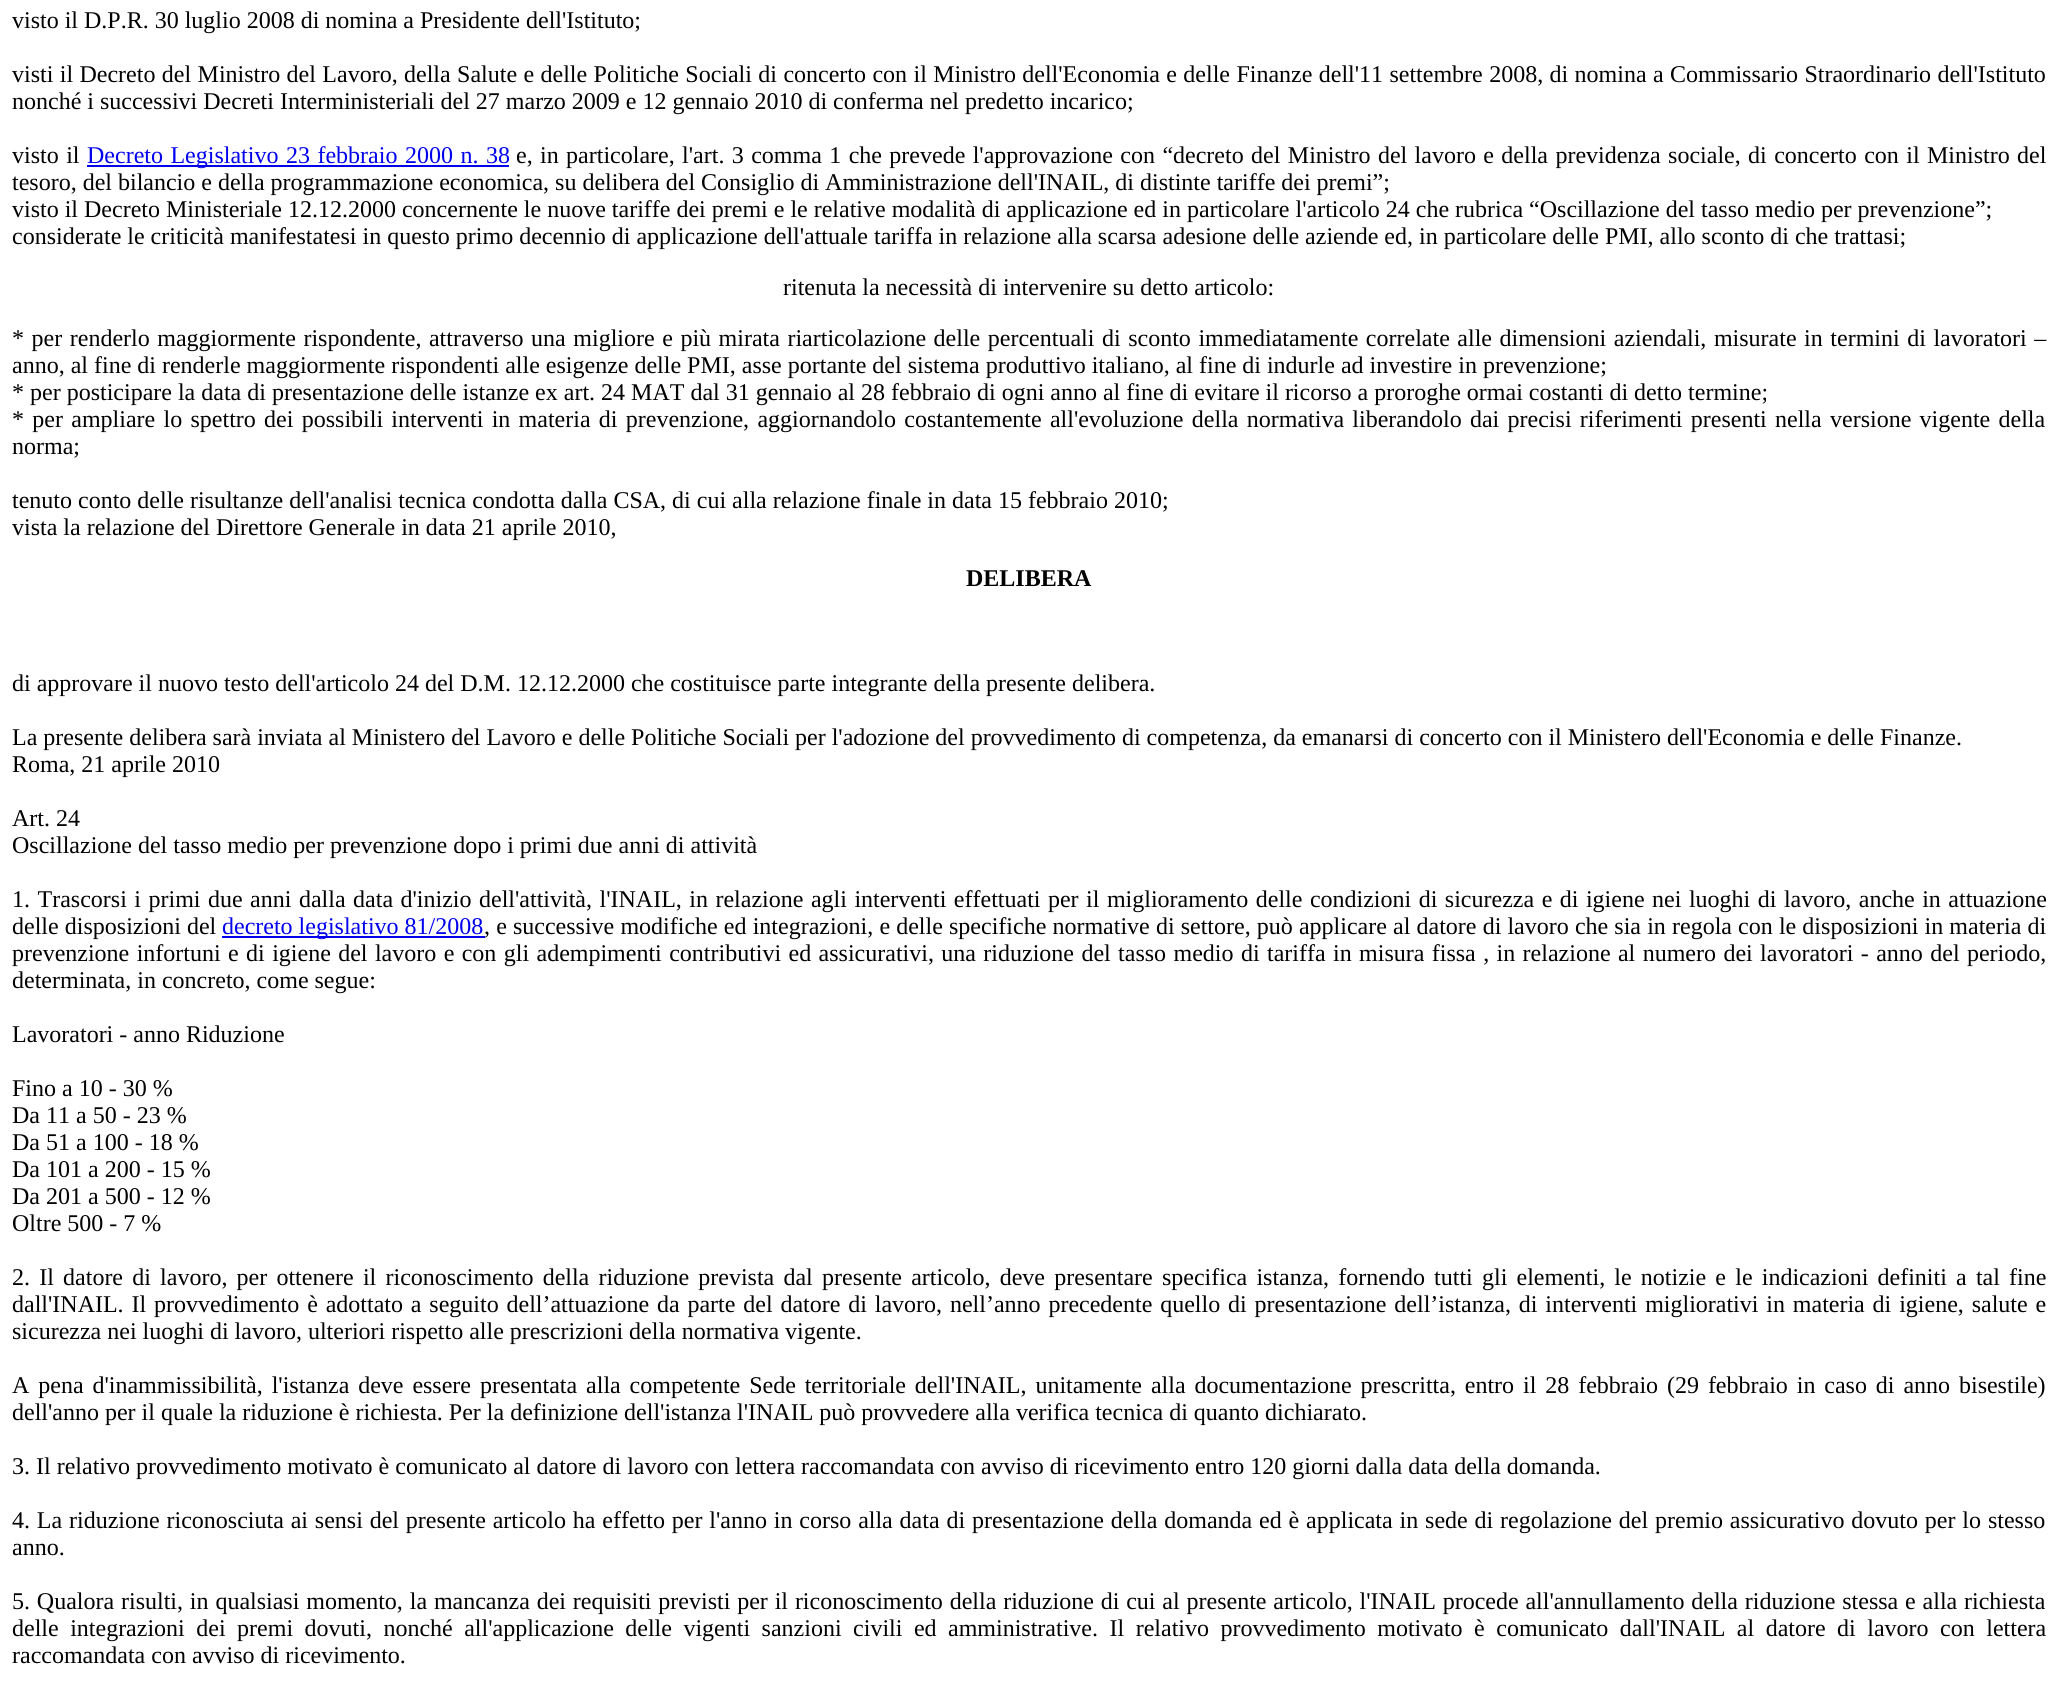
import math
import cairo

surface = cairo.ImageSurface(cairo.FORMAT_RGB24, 2058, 1693)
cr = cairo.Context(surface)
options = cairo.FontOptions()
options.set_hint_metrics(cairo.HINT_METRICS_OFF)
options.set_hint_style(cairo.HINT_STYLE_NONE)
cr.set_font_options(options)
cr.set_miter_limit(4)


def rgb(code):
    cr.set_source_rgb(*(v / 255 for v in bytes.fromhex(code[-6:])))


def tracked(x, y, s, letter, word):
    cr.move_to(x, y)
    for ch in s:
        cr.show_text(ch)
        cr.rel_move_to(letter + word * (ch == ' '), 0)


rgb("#ffffff")
cr.paint()
rgb("#0000ee")
cr.rectangle(87, 165, 422, 2)
cr.fill()
cr.rectangle(222, 936, 263, 2)
cr.fill()
cr.select_font_face("Liberation Serif")
cr.set_font_size(24)
rgb("#000000")
cr.move_to(12, 28)
cr.show_text("visto il D.P.R. 30 luglio 2008 di nomina a Presidente dell'Istituto;")
tracked(12, 82, "visti il Decreto del Ministro del Lavoro, della Salute e delle Politiche Sociali di concerto con il Ministro dell'Economia e delle Finanze dell'11 settembre 2008, di nomina a Commissario Straordinario dell'Istituto", 0, 0.4)
cr.move_to(12, 109)
cr.show_text("nonché i successivi Decreti Interministeriali del 27 marzo 2009 e 12 gennaio 2010 di conferma nel predetto incarico;")
tracked(12, 163, "visto il", 0, 1.5)
rgb("#0000ee")
tracked(87, 163, "Decreto Legislativo 23 febbraio 2000 n. 38", 0, 1.5)
rgb("#000000")
tracked(516, 163, "e, in particolare, l'art. 3 comma 1 che prevede l'approvazione con “decreto del Ministro del lavoro e della previdenza sociale, di concerto con il Ministro del", 0, 1.4)
for x, y, s in [
    (12, 190, "tesoro, del bilancio e della programmazione economica, su delibera del Consiglio di Amministrazione dell'INAIL, di distinte tariffe dei premi”;"),
    (12, 217, "visto il Decreto Ministeriale 12.12.2000 concernente le nuove tariffe dei premi e le relative modalità di applicazione ed in particolare l'articolo 24 che rubrica “Oscillazione del tasso medio per prevenzione”;"),
    (12, 244, "considerate le criticità manifestatesi in questo primo decennio di applicazione dell'attuale tariffa in relazione alla scarsa adesione delle aziende ed, in particolare delle PMI, allo sconto di che trattasi;"),
    (783, 295, "ritenuta la necessità di intervenire su detto articolo:"),
]:
    cr.move_to(x, y)
    cr.show_text(s)
tracked(12, 346, "* per renderlo maggiormente rispondente, attraverso una migliore e più mirata riarticolazione delle percentuali di sconto immediatamente correlate alle dimensioni aziendali, misurate in termini di lavoratori –", 0, 1.55)
cr.move_to(12, 373)
cr.show_text("anno, al fine di renderle maggiormente rispondenti alle esigenze delle PMI, asse portante del sistema produttivo italiano, al fine di indurle ad investire in prevenzione;")
cr.move_to(12, 400)
cr.show_text("* per posticipare la data di presentazione delle istanze ex art. 24 MAT dal 31 gennaio al 28 febbraio di ogni anno al fine di evitare il ricorso a proroghe ormai costanti di detto termine;")
tracked(12, 427, "* per ampliare lo spettro dei possibili interventi in materia di prevenzione, aggiornandolo costantemente all'evoluzione della normativa liberandolo dai precisi riferimenti presenti nella versione vigente della", 0, 2.3)
for x, y, s in [
    (12, 454, "norma;"),
    (12, 508, "tenuto conto delle risultanze dell'analisi tecnica condotta dalla CSA, di cui alla relazione finale in data 15 febbraio 2010;"),
    (12, 535, "vista la relazione del Direttore Generale in data 21 aprile 2010,"),
]:
    cr.move_to(x, y)
    cr.show_text(s)
cr.select_font_face("Liberation Serif", cairo.FONT_SLANT_NORMAL, cairo.FONT_WEIGHT_BOLD)
cr.move_to(966, 586)
cr.show_text("DELIBERA")
cr.select_font_face("Liberation Serif")
for x, y, s in [
    (12, 691, "di approvare il nuovo testo dell'articolo 24 del D.M. 12.12.2000 che costituisce parte integrante della presente delibera."),
    (12, 745, "La presente delibera sarà inviata al Ministero del Lavoro e delle Politiche Sociali per l'adozione del provvedimento di competenza, da emanarsi di concerto con il Ministero dell'Economia e delle Finanze."),
    (12, 772, "Roma, 21 aprile 2010"),
    (12, 826, "Art. 24"),
    (12, 853, "Oscillazione del tasso medio per prevenzione dopo i primi due anni di attività"),
]:
    cr.move_to(x, y)
    cr.show_text(s)
tracked(12, 907, "1. Trascorsi i primi due anni dalla data d'inizio dell'attività, l'INAIL, in relazione agli interventi effettuati per il miglioramento delle condizioni di sicurezza e di igiene nei luoghi di lavoro, anche in attuazione", 0, 1.5)
tracked(12, 934, "delle disposizioni del", 0, 0.15)
rgb("#0000ee")
cr.move_to(222, 934)
cr.show_text("decreto legislativo 81/2008")
rgb("#000000")
tracked(484, 934, ", e successive modifiche ed integrazioni, e delle specifiche normative di settore, può applicare al datore di lavoro che sia in regola con le disposizioni in materia di", 0, 0.15)
tracked(12, 961, "prevenzione infortuni e di igiene del lavoro e con gli adempimenti contributivi ed assicurativi, una riduzione del tasso medio di tariffa in misura fissa , in relazione al numero dei lavoratori - anno del periodo,", 0, 1.4)
for x, y, s in [
    (12, 988, "determinata, in concreto, come segue:"),
    (12, 1042, "Lavoratori - anno Riduzione"),
    (12, 1096, "Fino a 10 - 30 %"),
    (12, 1123, "Da 11 a 50 - 23 %"),
    (12, 1150, "Da 51 a 100 - 18 %"),
    (12, 1177, "Da 101 a 200 - 15 %"),
    (12, 1204, "Da 201 a 500 - 12 %"),
    (12, 1231, "Oltre 500 - 7 %"),
]:
    cr.move_to(x, y)
    cr.show_text(s)
tracked(12, 1285, "2. Il datore di lavoro, per ottenere il riconoscimento della riduzione prevista dal presente articolo, deve presentare specifica istanza, fornendo tutti gli elementi, le notizie e le indicazioni definiti a tal fine", 0, 3.2)
tracked(12, 1312, "dall'INAIL. Il provvedimento è adottato a seguito dell’attuazione da parte del datore di lavoro, nell’anno precedente quello di presentazione dell’istanza, di interventi migliorativi in materia di igiene, salute e", 0, 1.85)
cr.move_to(12, 1339)
cr.show_text("sicurezza nei luoghi di lavoro, ulteriori rispetto alle prescrizioni della normativa vigente.")
tracked(12, 1393, "A pena d'inammissibilità, l'istanza deve essere presentata alla competente Sede territoriale dell'INAIL, unitamente alla documentazione prescritta, entro il 28 febbraio (29 febbraio in caso di anno bisestile)", 0, 2.9)
cr.move_to(12, 1420)
cr.show_text("dell'anno per il quale la riduzione è richiesta. Per la definizione dell'istanza l'INAIL può provvedere alla verifica tecnica di quanto dichiarato.")
cr.move_to(12, 1474)
cr.show_text("3. Il relativo provvedimento motivato è comunicato al datore di lavoro con lettera raccomandata con avviso di ricevimento entro 120 giorni dalla data della domanda.")
tracked(12, 1528, "4. La riduzione riconosciuta ai sensi del presente articolo ha effetto per l'anno in corso alla data di presentazione della domanda ed è applicata in sede di regolazione del premio assicurativo dovuto per lo stesso", 0, 0.85)
cr.move_to(12, 1555)
cr.show_text("anno.")
tracked(12, 1609, "5. Qualora risulti, in qualsiasi momento, la mancanza dei requisiti previsti per il riconoscimento della riduzione di cui al presente articolo, l'INAIL procede all'annullamento della riduzione stessa e alla richiesta", 0, 0.85)
tracked(12, 1636, "delle integrazioni dei premi dovuti, nonché all'applicazione delle vigenti sanzioni civili ed amministrative. Il relativo provvedimento motivato è comunicato dall'INAIL al datore di lavoro con lettera", 0, 5.5)
cr.move_to(12, 1663)
cr.show_text("raccomandata con avviso di ricevimento.")
surface.write_to_png("page.png")
